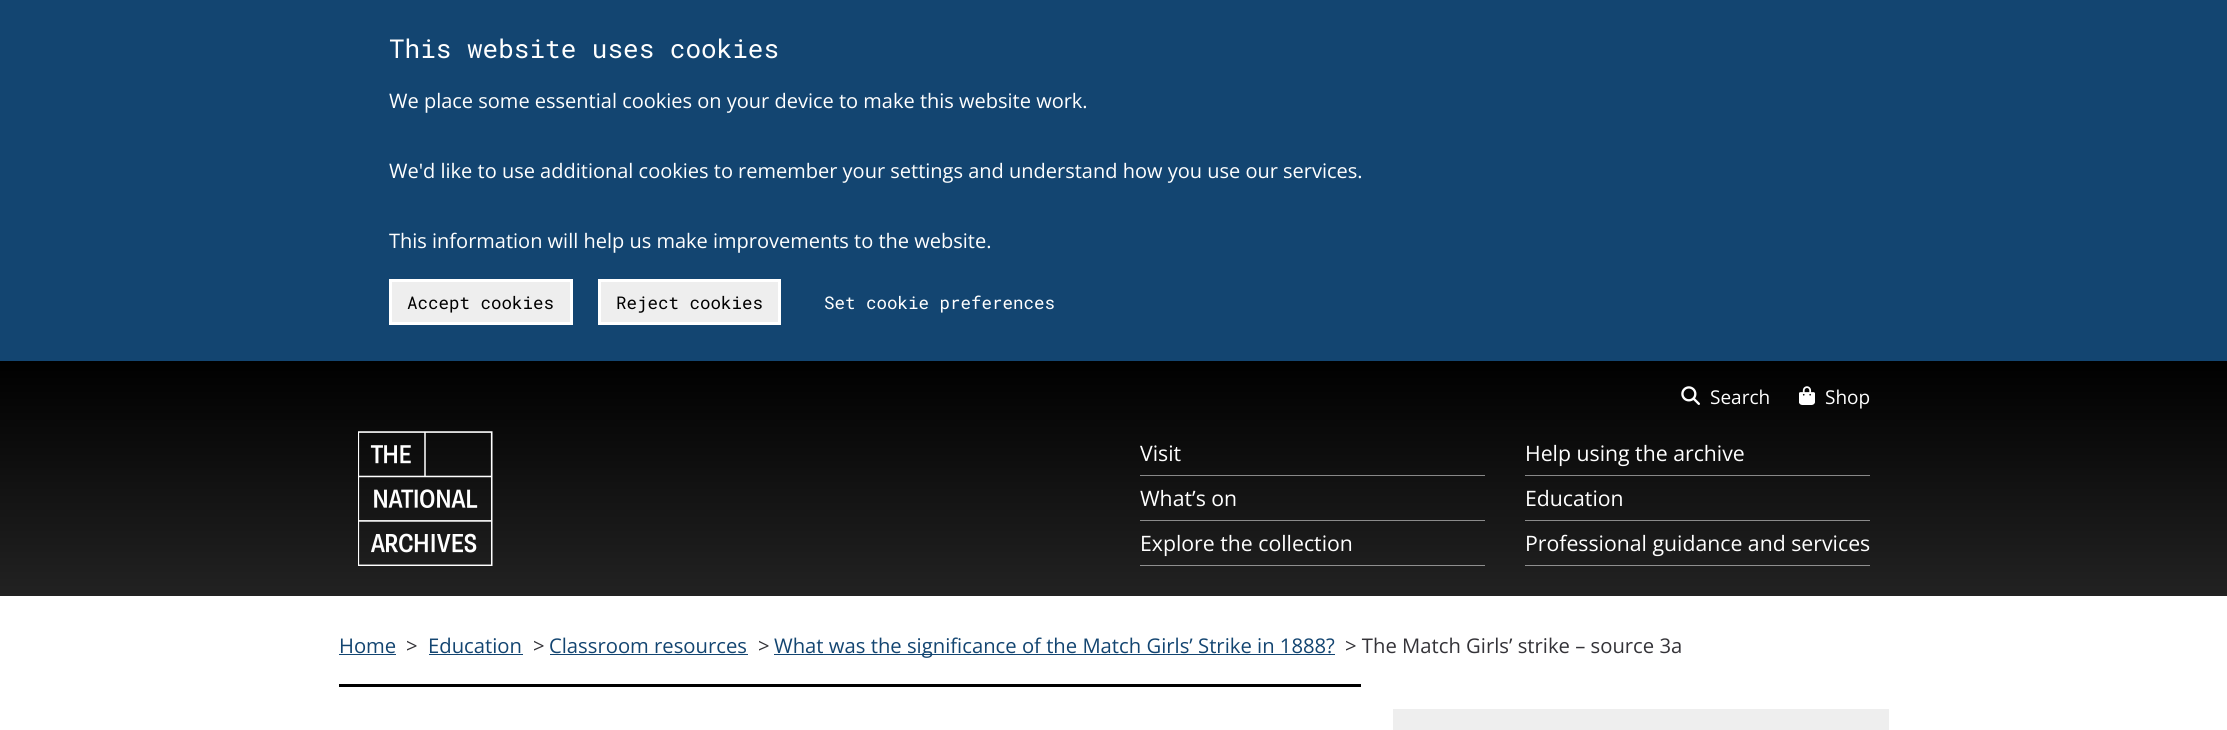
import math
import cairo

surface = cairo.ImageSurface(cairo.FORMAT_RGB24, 2227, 730)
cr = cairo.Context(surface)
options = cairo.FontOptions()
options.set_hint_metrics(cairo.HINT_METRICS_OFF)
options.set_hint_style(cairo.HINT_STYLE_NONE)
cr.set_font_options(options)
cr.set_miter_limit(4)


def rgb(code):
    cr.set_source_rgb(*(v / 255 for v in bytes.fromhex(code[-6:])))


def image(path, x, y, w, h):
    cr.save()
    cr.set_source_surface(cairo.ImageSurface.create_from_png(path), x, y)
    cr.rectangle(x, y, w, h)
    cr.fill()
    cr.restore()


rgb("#ffffff")
cr.paint()
rgb("#134571")
cr.rectangle(0, 0, 2227, 361)
cr.fill()
rgb("#eeeeee")
cr.rectangle(390.5, 280.5, 181, 43)
cr.fill_preserve()
rgb("#ffffff")
cr.set_line_width(3)
cr.stroke()
rgb("#eeeeee")
cr.rectangle(599.5, 280.5, 180, 43)
cr.fill_preserve()
rgb("#ffffff")
cr.stroke()
gradient = cairo.LinearGradient(1114, 596, 1114, 361)
gradient.add_color_stop_rgba(0, 0.133, 0.133, 0.133, 1)
gradient.add_color_stop_rgba(1, 0, 0, 0, 1)
cr.set_source(gradient)
cr.rectangle(0, 361, 2227, 235)
cr.fill()
image("img/1.png", 1681, 386, 19, 19)
image("img/2.png", 1799, 386, 16, 19)
image("img/3.png", 358, 431, 135, 135)
for x, y, w, h, color in [
    (1140, 475, 345, 1, "#888888"),
    (1525, 475, 345, 1, "#888888"),
    (1140, 520, 345, 1, "#8b8b8b"),
    (1525, 520, 345, 1, "#8b8b8b"),
    (1140, 565, 345, 1, "#8f8f8f"),
    (1525, 565, 345, 1, "#8f8f8f"),
    (339, 654, 57, 1, "#134571"),
    (429, 654, 94, 1, "#134571"),
    (550, 654, 198, 1, "#134571"),
    (774, 654, 561, 1, "#134571"),
    (339, 684, 1022, 3, "#000000"),
    (1393, 709, 496, 21, "#eeeeee"),
]:
    rgb(color)
    cr.rectangle(x, y, w, h)
    cr.fill()
cr.select_font_face("Roboto Mono")
cr.set_font_size(26)
rgb("#ffffff")
cr.move_to(389, 58)
cr.show_text("This website uses cookies")
cr.select_font_face("Open Sans")
cr.set_font_size(20)
for x, y, s in [
    (389, 108, "We place some essential cookies on your device to make this website work."),
    (389, 178, "We'd like to use additional cookies to remember your settings and understand how you use our services."),
    (389, 248, "This information will help us make improvements to the website."),
]:
    cr.move_to(x, y)
    cr.show_text(s)
cr.select_font_face("Roboto Mono")
cr.set_font_size(17.5)
rgb("#000000")
cr.move_to(407, 309)
cr.show_text("Accept cookies")
cr.move_to(616, 309)
cr.show_text("Reject cookies")
rgb("#ffffff")
cr.move_to(824, 309)
cr.show_text("Set cookie preferences")
cr.select_font_face("Open Sans")
cr.set_font_size(19)
cr.move_to(1710, 404)
cr.show_text("Search")
cr.move_to(1825, 404)
cr.show_text("Shop")
cr.set_font_size(21.25)
for x, y, s in [
    (1140, 461, "Visit"),
    (1525, 461, "Help using the archive"),
    (1140, 506, "What’s on"),
    (1525, 506, "Education"),
    (1140, 551, "Explore the collection"),
    (1525, 551, "Professional guidance and services"),
]:
    cr.move_to(x, y)
    cr.show_text(s)
cr.set_font_size(20.25)
rgb("#134571")
cr.move_to(339, 653)
cr.show_text("Home")
rgb("#343338")
cr.move_to(406, 653)
cr.show_text(">")
rgb("#134571")
cr.move_to(428, 653)
cr.show_text("Education")
rgb("#343338")
cr.move_to(533, 653)
cr.show_text(">")
rgb("#134571")
cr.move_to(549, 653)
cr.show_text("Classroom resources")
rgb("#343338")
cr.move_to(758, 653)
cr.show_text(">")
rgb("#134571")
cr.move_to(774, 653)
cr.show_text("What was the significance of the Match Girls’ Strike in 1888?")
rgb("#343338")
cr.move_to(1345, 653)
cr.show_text("> The Match Girls’ strike – source 3a")
surface.write_to_png("page.png")
